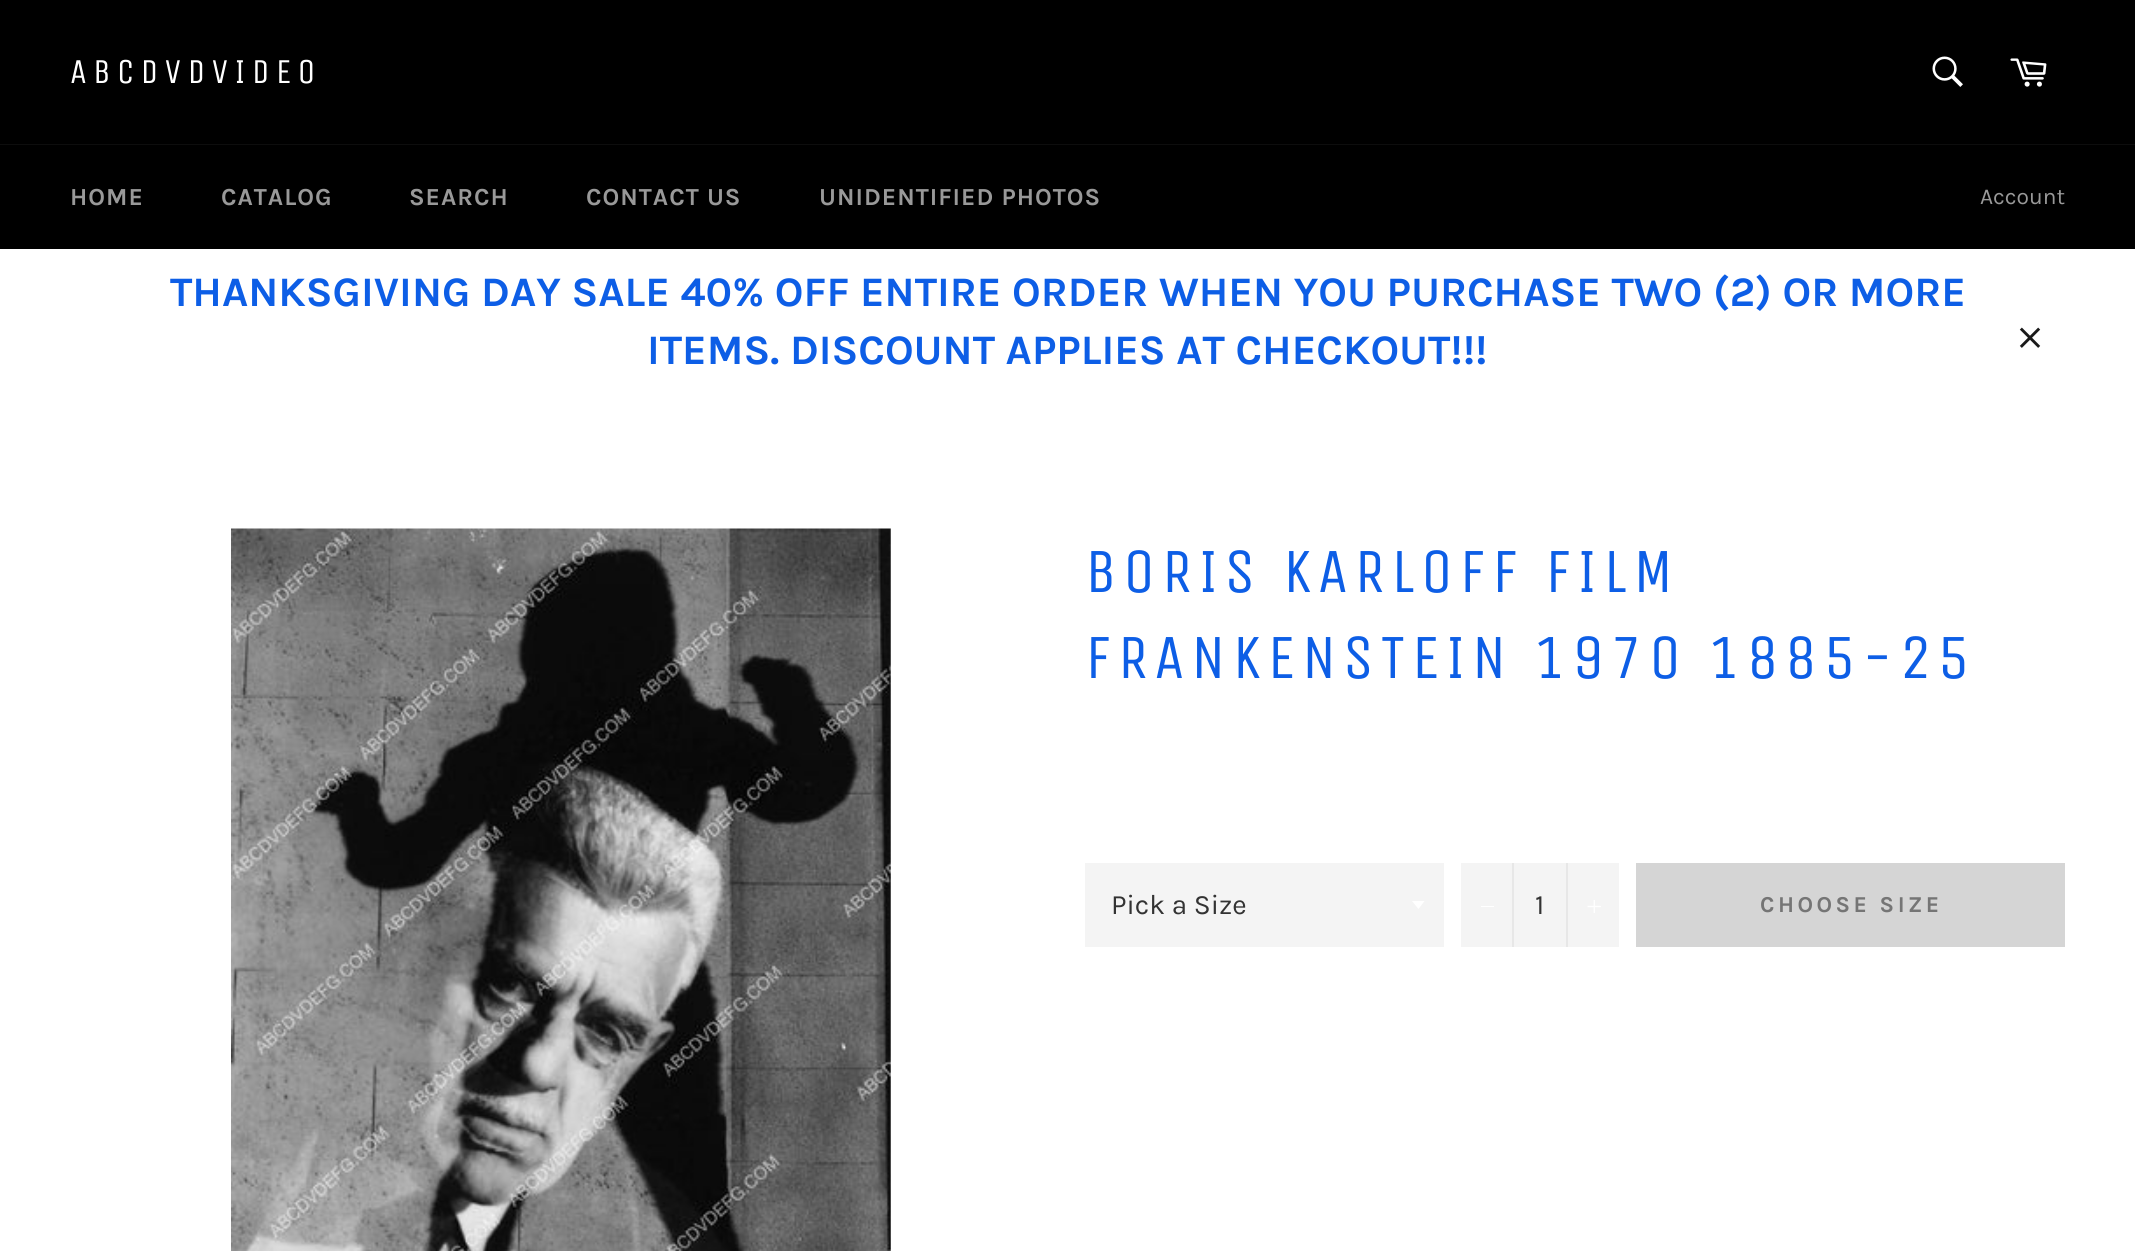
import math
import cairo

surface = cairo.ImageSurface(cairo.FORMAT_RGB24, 2135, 1251)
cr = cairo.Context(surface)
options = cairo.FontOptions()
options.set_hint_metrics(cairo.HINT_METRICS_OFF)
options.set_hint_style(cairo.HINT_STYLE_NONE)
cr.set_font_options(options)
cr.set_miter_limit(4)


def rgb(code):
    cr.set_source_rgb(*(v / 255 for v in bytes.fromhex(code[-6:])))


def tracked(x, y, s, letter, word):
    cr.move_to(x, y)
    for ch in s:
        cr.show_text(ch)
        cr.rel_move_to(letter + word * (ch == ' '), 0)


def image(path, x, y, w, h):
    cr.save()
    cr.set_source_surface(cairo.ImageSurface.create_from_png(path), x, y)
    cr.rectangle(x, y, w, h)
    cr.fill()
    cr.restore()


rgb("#ffffff")
cr.paint()
rgb("#000000")
cr.rectangle(0, 0, 2135, 144)
cr.fill()
image("img/1.png", 1932, 56, 31, 31)
image("img/2.png", 2010, 58, 37, 29)
rgb("#0d0d0d")
cr.rectangle(0, 144, 2135, 1)
cr.fill()
rgb("#000000")
cr.rectangle(0, 145, 2135, 104)
cr.fill()
image("img/3.png", 2019, 327, 22, 21)
image("img/4.png", 231, 528, 660, 723)
rgb("#f4f4f4")
cr.rectangle(1085, 863, 359, 84)
cr.fill()
rgb("#ffffff")
cr.new_path()
cr.move_to(1412, 901)
cr.line_to(1418.5, 909)
cr.line_to(1424.5, 901)
cr.close_path()
cr.fill()
for x, y, w, h, color in [
    (1461, 863, 158, 84, "#f4f4f4"),
    (1512, 863, 2, 84, "#e7e7e7"),
    (1481, 906, 13, 1, "#ffffff"),
    (1566, 863, 2, 84, "#e7e7e7"),
]:
    rgb(color)
    cr.rectangle(x, y, w, h)
    cr.fill()
image("img/5.png", 1587, 900, 14, 13)
rgb("#d5d5d5")
cr.rectangle(1636, 863, 429, 84)
cr.fill()
cr.select_font_face("Unica One")
cr.set_font_size(35)
rgb("#ffffff")
tracked(70, 83, "ABCDVDVIDEO", 6.3, 0)
cr.select_font_face("Karla", cairo.FONT_SLANT_NORMAL, cairo.FONT_WEIGHT_BOLD)
cr.set_font_size(24.5)
rgb("#999999")
for x, y, s in [
    (70, 205, "HOME"),
    (221, 205, "CATALOG"),
    (409, 205, "SEARCH"),
    (586, 205, "CONTACT US"),
    (819, 205, "UNIDENTIFIED PHOTOS"),
]:
    tracked(x, y, s, 1, 0)
cr.select_font_face("Karla")
cr.set_font_size(22.75)
cr.move_to(1980, 204)
cr.show_text("Account")
cr.select_font_face("Karla", cairo.FONT_SLANT_NORMAL, cairo.FONT_WEIGHT_BOLD)
cr.set_font_size(42)
rgb("#0d5ee6")
cr.move_to(170, 306)
cr.show_text("THANKSGIVING DAY SALE 40% OFF ENTIRE ORDER WHEN YOU PURCHASE TWO (2) OR MORE")
cr.move_to(647, 364)
cr.show_text("ITEMS. DISCOUNT APPLIES AT CHECKOUT!!!")
cr.select_font_face("Unica One")
cr.set_font_size(63)
tracked(1085, 592, "BORIS KARLOFF FILM", 6.3, 0)
tracked(1085, 678, "FRANKENSTEIN 1970 1885-25", 6.3, 0)
cr.select_font_face("Karla")
cr.set_font_size(28)
rgb("#333333")
cr.move_to(1111, 914)
cr.show_text("Pick a Size")
cr.move_to(1535, 914)
cr.show_text("1")
cr.select_font_face("Karla", cairo.FONT_SLANT_NORMAL, cairo.FONT_WEIGHT_BOLD)
cr.set_font_size(22.75)
rgb("#757575")
tracked(1760, 912, "CHOOSE SIZE", 3.5, 0)
surface.write_to_png("page.png")
